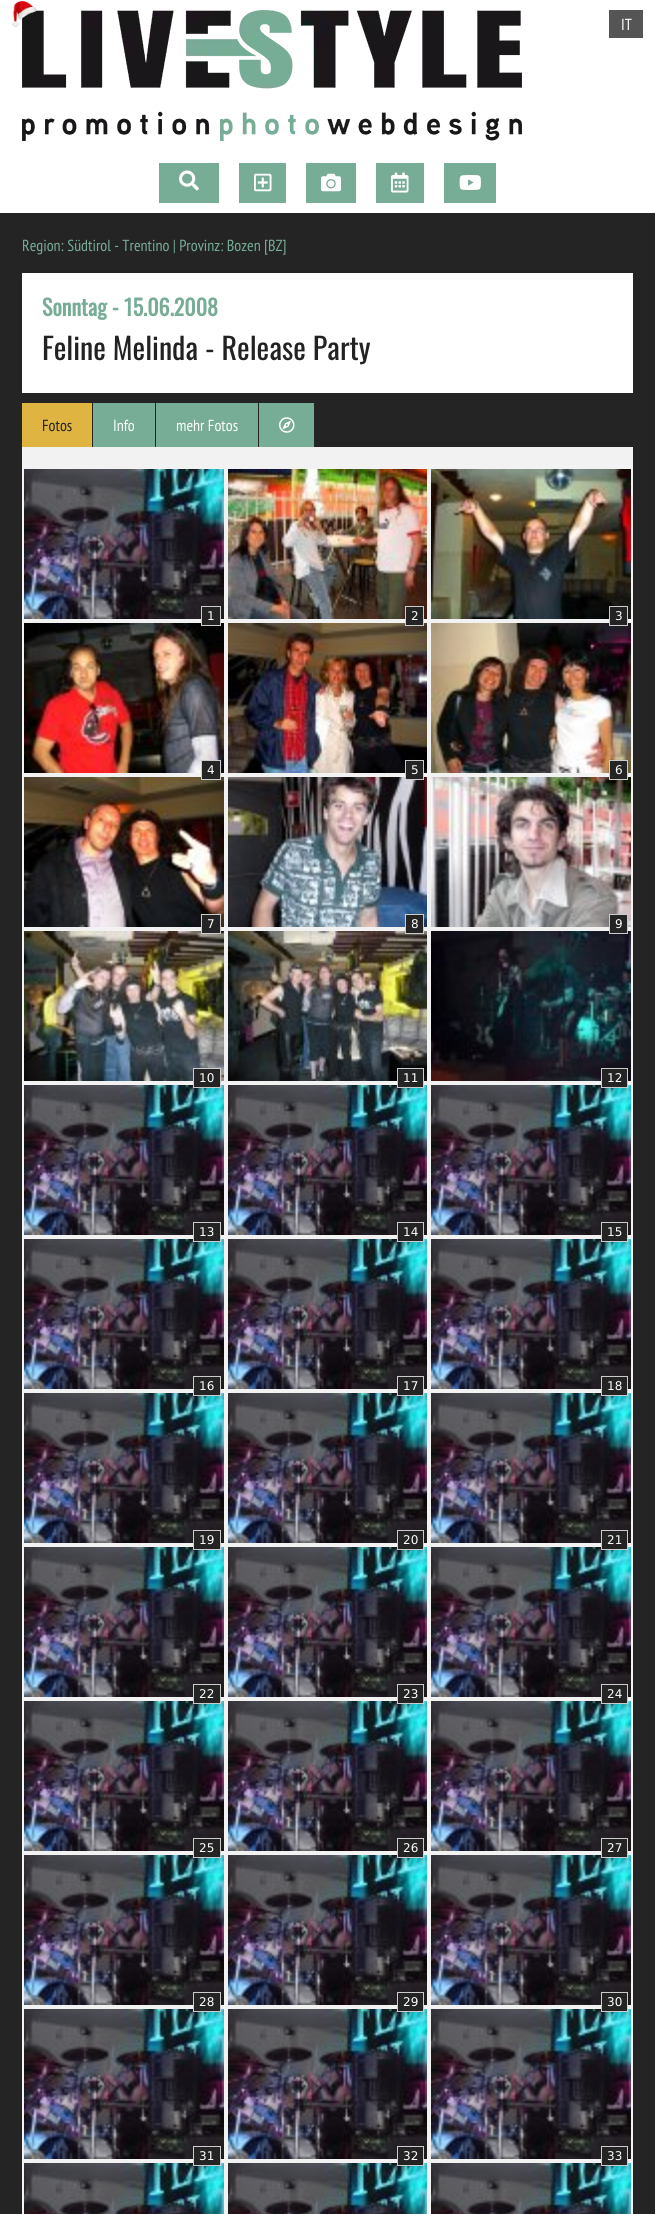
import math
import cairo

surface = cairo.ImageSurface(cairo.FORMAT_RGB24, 655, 2214)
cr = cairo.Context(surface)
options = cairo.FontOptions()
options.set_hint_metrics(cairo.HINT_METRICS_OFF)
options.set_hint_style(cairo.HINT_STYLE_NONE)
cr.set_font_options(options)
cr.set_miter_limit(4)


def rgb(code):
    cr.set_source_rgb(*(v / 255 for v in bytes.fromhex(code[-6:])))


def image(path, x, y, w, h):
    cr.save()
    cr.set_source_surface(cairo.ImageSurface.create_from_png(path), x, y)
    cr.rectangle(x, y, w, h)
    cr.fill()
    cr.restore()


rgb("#242424")
cr.paint()
rgb("#ffffff")
cr.rectangle(0, 0, 655, 213)
cr.fill()
image("img/2.png", 22, 10, 500, 131)
image("img/1.png", 12, 1, 25, 26)
rgb("#555555")
cr.rectangle(609, 10, 34, 28)
cr.fill()
rgb("#77ac96")
cr.rectangle(159, 163, 60, 40)
cr.fill()
image("img/3.png", 179, 170, 20, 21)
cr.rectangle(239, 163, 47, 40)
cr.fill()
image("img/4.png", 254, 173, 18, 19)
cr.rectangle(306, 163, 50, 40)
cr.fill()
image("img/5.png", 321, 173, 20, 19)
cr.rectangle(376, 163, 48, 40)
cr.fill()
image("img/6.png", 391, 172, 18, 21)
cr.rectangle(444, 163, 52, 40)
cr.fill()
image("img/7.png", 459, 175, 22, 15)
for x, y, w, h, color in [
    (22, 273, 611, 120, "#ffffff"),
    (22, 403, 70, 44, "#dfb441"),
    (93, 403, 62, 44, "#77ac96"),
    (156, 403, 102, 44, "#77ac96"),
    (259, 403, 55, 44, "#77ac96"),
]:
    rgb(color)
    cr.rectangle(x, y, w, h)
    cr.fill()
image("img/8.png", 279, 417, 16, 16)
rgb("#f2f2f2")
cr.rectangle(22, 447, 611, 1767)
cr.fill()
image("img/9.png", 24, 469, 200, 150)
image("img/12.png", 24, 623, 200, 150)
rgb("#242424")
cr.rectangle(201.5, 606.5, 19, 19)
cr.fill_preserve()
rgb("#cccccc")
cr.set_line_width(1)
cr.stroke()
image("img/10.png", 228, 469, 199, 150)
image("img/13.png", 228, 623, 199, 150)
rgb("#242424")
cr.rectangle(405.5, 606.5, 18, 19)
cr.fill_preserve()
rgb("#cccccc")
cr.stroke()
image("img/11.png", 431, 469, 200, 150)
image("img/14.png", 431, 623, 200, 150)
rgb("#242424")
cr.rectangle(609.5, 606.5, 18, 19)
cr.fill_preserve()
rgb("#cccccc")
cr.stroke()
image("img/15.png", 24, 777, 200, 150)
rgb("#242424")
cr.rectangle(201.5, 760.5, 19, 19)
cr.fill_preserve()
rgb("#cccccc")
cr.stroke()
image("img/16.png", 228, 777, 199, 150)
rgb("#242424")
cr.rectangle(405.5, 760.5, 18, 19)
cr.fill_preserve()
rgb("#cccccc")
cr.stroke()
image("img/17.png", 431, 777, 200, 150)
rgb("#242424")
cr.rectangle(609.5, 760.5, 18, 19)
cr.fill_preserve()
rgb("#cccccc")
cr.stroke()
image("img/18.png", 24, 931, 200, 150)
rgb("#242424")
cr.rectangle(201.5, 914.5, 19, 19)
cr.fill_preserve()
rgb("#cccccc")
cr.stroke()
image("img/19.png", 228, 931, 199, 150)
rgb("#242424")
cr.rectangle(405.5, 914.5, 18, 19)
cr.fill_preserve()
rgb("#cccccc")
cr.stroke()
image("img/20.png", 431, 931, 200, 150)
rgb("#242424")
cr.rectangle(609.5, 914.5, 18, 19)
cr.fill_preserve()
rgb("#cccccc")
cr.stroke()
image("img/9.png", 24, 1085, 200, 150)
rgb("#242424")
cr.rectangle(193.5, 1068.5, 27, 19)
cr.fill_preserve()
rgb("#cccccc")
cr.stroke()
image("img/21.png", 228, 1085, 199, 150)
rgb("#242424")
cr.rectangle(397.5, 1068.5, 26, 19)
cr.fill_preserve()
rgb("#cccccc")
cr.stroke()
image("img/9.png", 431, 1085, 200, 150)
rgb("#242424")
cr.rectangle(601.5, 1068.5, 26, 19)
cr.fill_preserve()
rgb("#cccccc")
cr.stroke()
image("img/9.png", 24, 1239, 200, 150)
rgb("#242424")
cr.rectangle(193.5, 1222.5, 27, 19)
cr.fill_preserve()
rgb("#cccccc")
cr.stroke()
image("img/21.png", 228, 1239, 199, 150)
rgb("#242424")
cr.rectangle(397.5, 1222.5, 26, 19)
cr.fill_preserve()
rgb("#cccccc")
cr.stroke()
image("img/9.png", 431, 1239, 200, 150)
rgb("#242424")
cr.rectangle(601.5, 1222.5, 26, 19)
cr.fill_preserve()
rgb("#cccccc")
cr.stroke()
image("img/9.png", 24, 1393, 200, 150)
rgb("#242424")
cr.rectangle(193.5, 1376.5, 27, 19)
cr.fill_preserve()
rgb("#cccccc")
cr.stroke()
image("img/21.png", 228, 1393, 199, 150)
rgb("#242424")
cr.rectangle(397.5, 1376.5, 26, 19)
cr.fill_preserve()
rgb("#cccccc")
cr.stroke()
image("img/9.png", 431, 1393, 200, 150)
rgb("#242424")
cr.rectangle(601.5, 1376.5, 26, 19)
cr.fill_preserve()
rgb("#cccccc")
cr.stroke()
image("img/9.png", 24, 1547, 200, 150)
rgb("#242424")
cr.rectangle(193.5, 1530.5, 27, 19)
cr.fill_preserve()
rgb("#cccccc")
cr.stroke()
image("img/21.png", 228, 1547, 199, 150)
rgb("#242424")
cr.rectangle(397.5, 1530.5, 26, 19)
cr.fill_preserve()
rgb("#cccccc")
cr.stroke()
image("img/9.png", 431, 1547, 200, 150)
rgb("#242424")
cr.rectangle(601.5, 1530.5, 26, 19)
cr.fill_preserve()
rgb("#cccccc")
cr.stroke()
image("img/9.png", 24, 1701, 200, 150)
rgb("#242424")
cr.rectangle(193.5, 1684.5, 27, 19)
cr.fill_preserve()
rgb("#cccccc")
cr.stroke()
image("img/21.png", 228, 1701, 199, 150)
rgb("#242424")
cr.rectangle(397.5, 1684.5, 26, 19)
cr.fill_preserve()
rgb("#cccccc")
cr.stroke()
image("img/9.png", 431, 1701, 200, 150)
rgb("#242424")
cr.rectangle(601.5, 1684.5, 26, 19)
cr.fill_preserve()
rgb("#cccccc")
cr.stroke()
image("img/9.png", 24, 1855, 200, 150)
rgb("#242424")
cr.rectangle(193.5, 1838.5, 27, 19)
cr.fill_preserve()
rgb("#cccccc")
cr.stroke()
image("img/21.png", 228, 1855, 199, 150)
rgb("#242424")
cr.rectangle(397.5, 1838.5, 26, 19)
cr.fill_preserve()
rgb("#cccccc")
cr.stroke()
image("img/9.png", 431, 1855, 200, 150)
rgb("#242424")
cr.rectangle(601.5, 1838.5, 26, 19)
cr.fill_preserve()
rgb("#cccccc")
cr.stroke()
image("img/9.png", 24, 2009, 200, 150)
rgb("#242424")
cr.rectangle(193.5, 1992.5, 27, 19)
cr.fill_preserve()
rgb("#cccccc")
cr.stroke()
image("img/21.png", 228, 2009, 199, 150)
rgb("#242424")
cr.rectangle(397.5, 1992.5, 26, 19)
cr.fill_preserve()
rgb("#cccccc")
cr.stroke()
image("img/9.png", 431, 2009, 200, 150)
rgb("#242424")
cr.rectangle(601.5, 1992.5, 26, 19)
cr.fill_preserve()
rgb("#cccccc")
cr.stroke()
image("img/22.png", 24, 2163, 200, 51)
rgb("#242424")
cr.rectangle(193.5, 2146.5, 27, 19)
cr.fill_preserve()
rgb("#cccccc")
cr.stroke()
image("img/23.png", 228, 2163, 199, 51)
rgb("#242424")
cr.rectangle(397.5, 2146.5, 26, 19)
cr.fill_preserve()
rgb("#cccccc")
cr.stroke()
image("img/22.png", 431, 2163, 200, 51)
rgb("#242424")
cr.rectangle(601.5, 2146.5, 26, 19)
cr.fill_preserve()
rgb("#cccccc")
cr.stroke()
cr.select_font_face("PT Sans Narrow")
cr.set_font_size(16)
rgb("#ffffff")
cr.move_to(621, 30)
cr.show_text("IT")
rgb("#77ac96")
cr.move_to(22, 251)
cr.show_text("Region: Südtirol - Trentino | Provinz: Bozen [BZ]")
cr.select_font_face("Oswald", cairo.FONT_SLANT_NORMAL, cairo.FONT_WEIGHT_BOLD)
cr.set_font_size(22)
cr.move_to(42, 316)
cr.show_text("Sonntag - 15.06.2008")
cr.select_font_face("Oswald")
cr.set_font_size(30)
rgb("#222222")
cr.move_to(42, 360)
cr.show_text("Feline Melinda - Release Party")
cr.select_font_face("PT Sans Narrow")
cr.set_font_size(16)
cr.move_to(42, 431)
cr.show_text("Fotos")
rgb("#ffffff")
cr.move_to(113, 431)
cr.show_text("Info")
cr.move_to(176, 431)
cr.show_text("mehr Fotos")
cr.select_font_face("DejaVu Sans")
cr.set_font_size(12)
for x, y, s in [
    (207, 620, "1"),
    (411, 620, "2"),
    (615, 620, "3"),
    (207, 774, "4"),
    (411, 774, "5"),
    (615, 774, "6"),
    (207, 928, "7"),
    (411, 928, "8"),
    (615, 928, "9"),
    (199, 1082, "10"),
    (403, 1082, "11"),
    (607, 1082, "12"),
    (199, 1236, "13"),
    (403, 1236, "14"),
    (607, 1236, "15"),
    (199, 1390, "16"),
    (403, 1390, "17"),
    (607, 1390, "18"),
    (199, 1544, "19"),
    (403, 1544, "20"),
    (607, 1544, "21"),
    (199, 1698, "22"),
    (403, 1698, "23"),
    (607, 1698, "24"),
    (199, 1852, "25"),
    (403, 1852, "26"),
    (607, 1852, "27"),
    (199, 2006, "28"),
    (403, 2006, "29"),
    (607, 2006, "30"),
    (199, 2160, "31"),
    (403, 2160, "32"),
    (607, 2160, "33"),
]:
    cr.move_to(x, y)
    cr.show_text(s)
surface.write_to_png("page.png")
